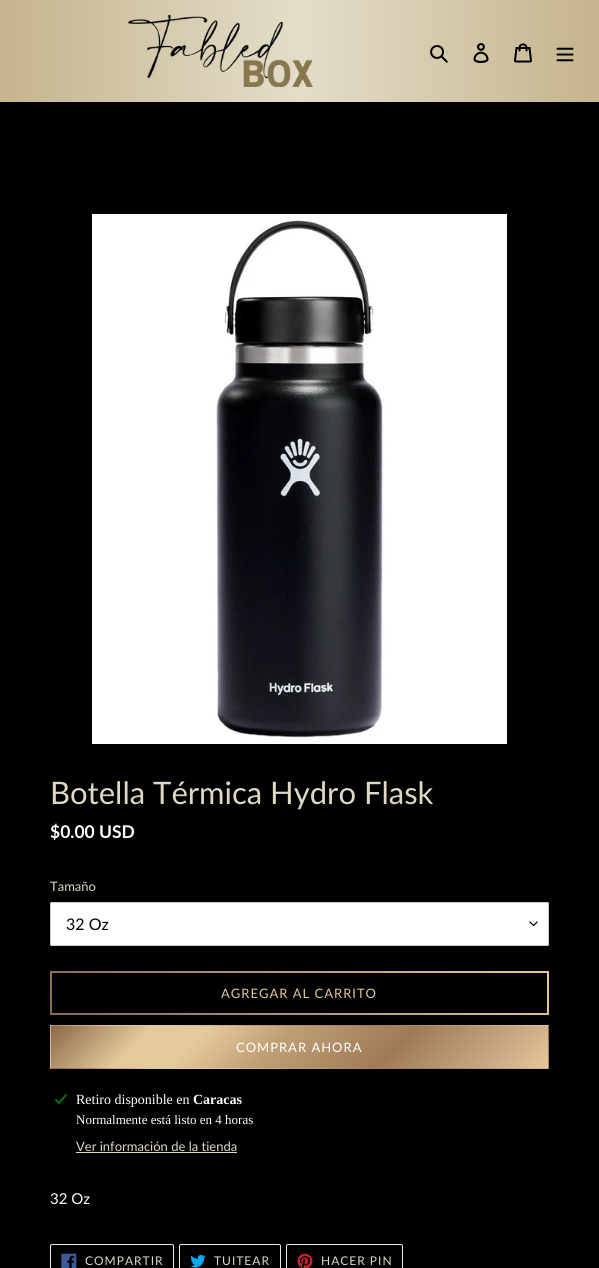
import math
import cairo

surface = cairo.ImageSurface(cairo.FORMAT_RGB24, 599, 1268)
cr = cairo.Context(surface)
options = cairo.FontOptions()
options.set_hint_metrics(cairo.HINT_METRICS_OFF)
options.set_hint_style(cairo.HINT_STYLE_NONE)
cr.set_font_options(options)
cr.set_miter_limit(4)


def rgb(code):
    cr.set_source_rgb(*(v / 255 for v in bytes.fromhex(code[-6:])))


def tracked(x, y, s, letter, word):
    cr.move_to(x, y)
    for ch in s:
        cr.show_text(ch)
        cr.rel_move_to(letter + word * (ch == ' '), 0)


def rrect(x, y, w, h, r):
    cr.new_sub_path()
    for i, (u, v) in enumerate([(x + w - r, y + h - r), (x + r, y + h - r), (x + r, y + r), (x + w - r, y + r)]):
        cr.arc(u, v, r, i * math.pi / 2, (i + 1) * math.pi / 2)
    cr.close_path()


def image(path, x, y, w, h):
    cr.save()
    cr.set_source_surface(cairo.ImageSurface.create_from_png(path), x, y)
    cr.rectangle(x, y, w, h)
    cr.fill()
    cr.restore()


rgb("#000000")
cr.paint()
gradient = cairo.LinearGradient(0, 51, 599, 51)
gradient.add_color_stop_rgba(0, 0.773, 0.706, 0.553, 1)
gradient.add_color_stop_rgba(0.5, 0.89, 0.867, 0.788, 1)
gradient.add_color_stop_rgba(1, 0.773, 0.706, 0.553, 1)
cr.set_source(gradient)
cr.rectangle(0, 0, 599, 102)
cr.fill()
image("img/1.png", 128, 15, 185, 72)
image("img/2.png", 430, 45, 18, 18)
image("img/3.png", 473, 43, 16, 20)
image("img/4.png", 514, 43, 18, 20)
image("img/5.png", 556, 47, 18, 15)
image("img/6.png", 92, 214, 415, 530)
rgb("#ffffff")
rrect(50, 902, 499, 44, 2)
cr.fill()
image("img/7.png", 529, 921, 9, 6)
rrect(50.5, 902.5, 498, 43, 1.5)
rgb("#cccccc")
cr.set_line_width(1)
cr.stroke()
image("img/8.png", 50, 971, 499, 44)
gradient = cairo.LinearGradient(-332, 870, -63, 1140)
gradient.add_color_stop_rgba(0, 0.533, 0.412, 0.282, 1)
gradient.add_color_stop_rgba(0.19, 0.894, 0.788, 0.604, 1)
gradient.add_color_stop_rgba(0.3, 0.894, 0.788, 0.604, 1)
gradient.add_color_stop_rgba(0.45, 0.749, 0.624, 0.459, 1)
gradient.add_color_stop_rgba(0.68, 0.624, 0.478, 0.341, 1)
gradient.add_color_stop_rgba(0.9, 0.804, 0.682, 0.533, 1)
gradient.add_color_stop_rgba(1, 0.894, 0.788, 0.604, 1)
cr.set_source(gradient)
cr.rectangle(50, 1025, 1, 1)
cr.fill()
gradient = cairo.LinearGradient(165, 870, 434, 1140)
gradient.add_color_stop_rgba(0, 0.533, 0.412, 0.282, 1)
gradient.add_color_stop_rgba(0.19, 0.894, 0.788, 0.604, 1)
gradient.add_color_stop_rgba(0.3, 0.894, 0.788, 0.604, 1)
gradient.add_color_stop_rgba(0.45, 0.749, 0.624, 0.459, 1)
gradient.add_color_stop_rgba(0.68, 0.624, 0.478, 0.341, 1)
gradient.add_color_stop_rgba(0.9, 0.804, 0.682, 0.533, 1)
gradient.add_color_stop_rgba(1, 0.894, 0.788, 0.604, 1)
cr.set_source(gradient)
cr.rectangle(51, 1025, 497, 1)
cr.fill()
gradient = cairo.LinearGradient(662, 870, 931, 1140)
gradient.add_color_stop_rgba(0, 0.533, 0.412, 0.282, 1)
gradient.add_color_stop_rgba(0.19, 0.894, 0.788, 0.604, 1)
gradient.add_color_stop_rgba(0.3, 0.894, 0.788, 0.604, 1)
gradient.add_color_stop_rgba(0.45, 0.749, 0.624, 0.459, 1)
gradient.add_color_stop_rgba(0.68, 0.624, 0.478, 0.341, 1)
gradient.add_color_stop_rgba(0.9, 0.804, 0.682, 0.533, 1)
gradient.add_color_stop_rgba(1, 0.894, 0.788, 0.604, 1)
cr.set_source(gradient)
cr.rectangle(548, 1025, 1, 1)
cr.fill()
gradient = cairo.LinearGradient(-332, 912, -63, 1182)
gradient.add_color_stop_rgba(0, 0.533, 0.412, 0.282, 1)
gradient.add_color_stop_rgba(0.19, 0.894, 0.788, 0.604, 1)
gradient.add_color_stop_rgba(0.3, 0.894, 0.788, 0.604, 1)
gradient.add_color_stop_rgba(0.45, 0.749, 0.624, 0.459, 1)
gradient.add_color_stop_rgba(0.68, 0.624, 0.478, 0.341, 1)
gradient.add_color_stop_rgba(0.9, 0.804, 0.682, 0.533, 1)
gradient.add_color_stop_rgba(1, 0.894, 0.788, 0.604, 1)
cr.set_source(gradient)
cr.rectangle(50, 1026, 1, 42)
cr.fill()
gradient = cairo.LinearGradient(165, 912, 434, 1182)
gradient.add_color_stop_rgba(0, 0.533, 0.412, 0.282, 1)
gradient.add_color_stop_rgba(0.19, 0.894, 0.788, 0.604, 1)
gradient.add_color_stop_rgba(0.3, 0.894, 0.788, 0.604, 1)
gradient.add_color_stop_rgba(0.45, 0.749, 0.624, 0.459, 1)
gradient.add_color_stop_rgba(0.68, 0.624, 0.478, 0.341, 1)
gradient.add_color_stop_rgba(0.9, 0.804, 0.682, 0.533, 1)
gradient.add_color_stop_rgba(1, 0.894, 0.788, 0.604, 1)
cr.set_source(gradient)
cr.rectangle(51, 1026, 497, 42)
cr.fill()
gradient = cairo.LinearGradient(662, 912, 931, 1182)
gradient.add_color_stop_rgba(0, 0.533, 0.412, 0.282, 1)
gradient.add_color_stop_rgba(0.19, 0.894, 0.788, 0.604, 1)
gradient.add_color_stop_rgba(0.3, 0.894, 0.788, 0.604, 1)
gradient.add_color_stop_rgba(0.45, 0.749, 0.624, 0.459, 1)
gradient.add_color_stop_rgba(0.68, 0.624, 0.478, 0.341, 1)
gradient.add_color_stop_rgba(0.9, 0.804, 0.682, 0.533, 1)
gradient.add_color_stop_rgba(1, 0.894, 0.788, 0.604, 1)
cr.set_source(gradient)
cr.rectangle(548, 1026, 1, 42)
cr.fill()
gradient = cairo.LinearGradient(-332, 954, -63, 1224)
gradient.add_color_stop_rgba(0, 0.533, 0.412, 0.282, 1)
gradient.add_color_stop_rgba(0.19, 0.894, 0.788, 0.604, 1)
gradient.add_color_stop_rgba(0.3, 0.894, 0.788, 0.604, 1)
gradient.add_color_stop_rgba(0.45, 0.749, 0.624, 0.459, 1)
gradient.add_color_stop_rgba(0.68, 0.624, 0.478, 0.341, 1)
gradient.add_color_stop_rgba(0.9, 0.804, 0.682, 0.533, 1)
gradient.add_color_stop_rgba(1, 0.894, 0.788, 0.604, 1)
cr.set_source(gradient)
cr.rectangle(50, 1068, 1, 1)
cr.fill()
gradient = cairo.LinearGradient(165, 954, 434, 1224)
gradient.add_color_stop_rgba(0, 0.533, 0.412, 0.282, 1)
gradient.add_color_stop_rgba(0.19, 0.894, 0.788, 0.604, 1)
gradient.add_color_stop_rgba(0.3, 0.894, 0.788, 0.604, 1)
gradient.add_color_stop_rgba(0.45, 0.749, 0.624, 0.459, 1)
gradient.add_color_stop_rgba(0.68, 0.624, 0.478, 0.341, 1)
gradient.add_color_stop_rgba(0.9, 0.804, 0.682, 0.533, 1)
gradient.add_color_stop_rgba(1, 0.894, 0.788, 0.604, 1)
cr.set_source(gradient)
cr.rectangle(51, 1068, 497, 1)
cr.fill()
gradient = cairo.LinearGradient(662, 954, 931, 1224)
gradient.add_color_stop_rgba(0, 0.533, 0.412, 0.282, 1)
gradient.add_color_stop_rgba(0.19, 0.894, 0.788, 0.604, 1)
gradient.add_color_stop_rgba(0.3, 0.894, 0.788, 0.604, 1)
gradient.add_color_stop_rgba(0.45, 0.749, 0.624, 0.459, 1)
gradient.add_color_stop_rgba(0.68, 0.624, 0.478, 0.341, 1)
gradient.add_color_stop_rgba(0.9, 0.804, 0.682, 0.533, 1)
gradient.add_color_stop_rgba(1, 0.894, 0.788, 0.604, 1)
cr.set_source(gradient)
cr.rectangle(548, 1068, 1, 1)
cr.fill()
image("img/9.png", 55, 1094, 12, 10)
rgb("#ded8c4")
cr.rectangle(76, 1152, 161, 1)
cr.fill()
rrect(50.5, 1244.5, 123, 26, 1.5)
rgb("#ebebeb")
cr.stroke()
image("img/10.png", 61, 1253, 16, 15)
rrect(179.5, 1244.5, 101, 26, 1.5)
cr.stroke()
image("img/11.png", 190, 1254, 16, 14)
rrect(286.5, 1244.5, 116, 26, 1.5)
cr.stroke()
image("img/12.png", 297, 1253, 16, 15)
cr.select_font_face("Lato")
cr.set_font_size(31)
rgb("#ded8c4")
cr.move_to(50, 804)
cr.show_text("Botella Térmica Hydro Flask")
cr.select_font_face("Lato", cairo.FONT_SLANT_NORMAL, cairo.FONT_WEIGHT_BOLD)
cr.set_font_size(17.5)
rgb("#ffffff")
cr.move_to(50, 838)
cr.show_text("$0.00 USD")
cr.select_font_face("Lato")
cr.set_font_size(13)
rgb("#ded8c4")
cr.move_to(50, 891)
cr.show_text("Tamaño")
cr.set_font_size(16)
rgb("#000000")
cr.move_to(66, 930)
cr.show_text("32 Oz")
cr.set_font_size(13)
rgb("#e4c99a")
tracked(221, 998, "AGREGAR AL CARRITO", 1, 0)
rgb("#ffffff")
tracked(236, 1052, "COMPRAR AHORA", 1, 0)
cr.select_font_face("Liberation Serif")
cr.set_font_size(14)
cr.move_to(76, 1104)
cr.show_text("Retiro disponible en")
cr.select_font_face("Liberation Serif", cairo.FONT_SLANT_NORMAL, cairo.FONT_WEIGHT_BOLD)
cr.move_to(193, 1104)
cr.show_text("Caracas")
cr.select_font_face("Liberation Serif")
cr.set_font_size(13)
cr.move_to(76, 1124)
cr.show_text("Normalmente está listo en 4 horas")
cr.select_font_face("Lato")
rgb("#ded8c4")
cr.move_to(76, 1151)
cr.show_text("Ver información de la tienda")
cr.set_font_size(15)
rgb("#ffffff")
cr.move_to(50, 1204)
cr.show_text("32 Oz")
cr.set_font_size(12)
rgb("#ded8c4")
for x, y, s in [
    (85, 1265, "COMPARTIR"),
    (214, 1265, "TUITEAR"),
    (321, 1265, "HACER PIN"),
]:
    tracked(x, y, s, 1, 0)
surface.write_to_png("page.png")
